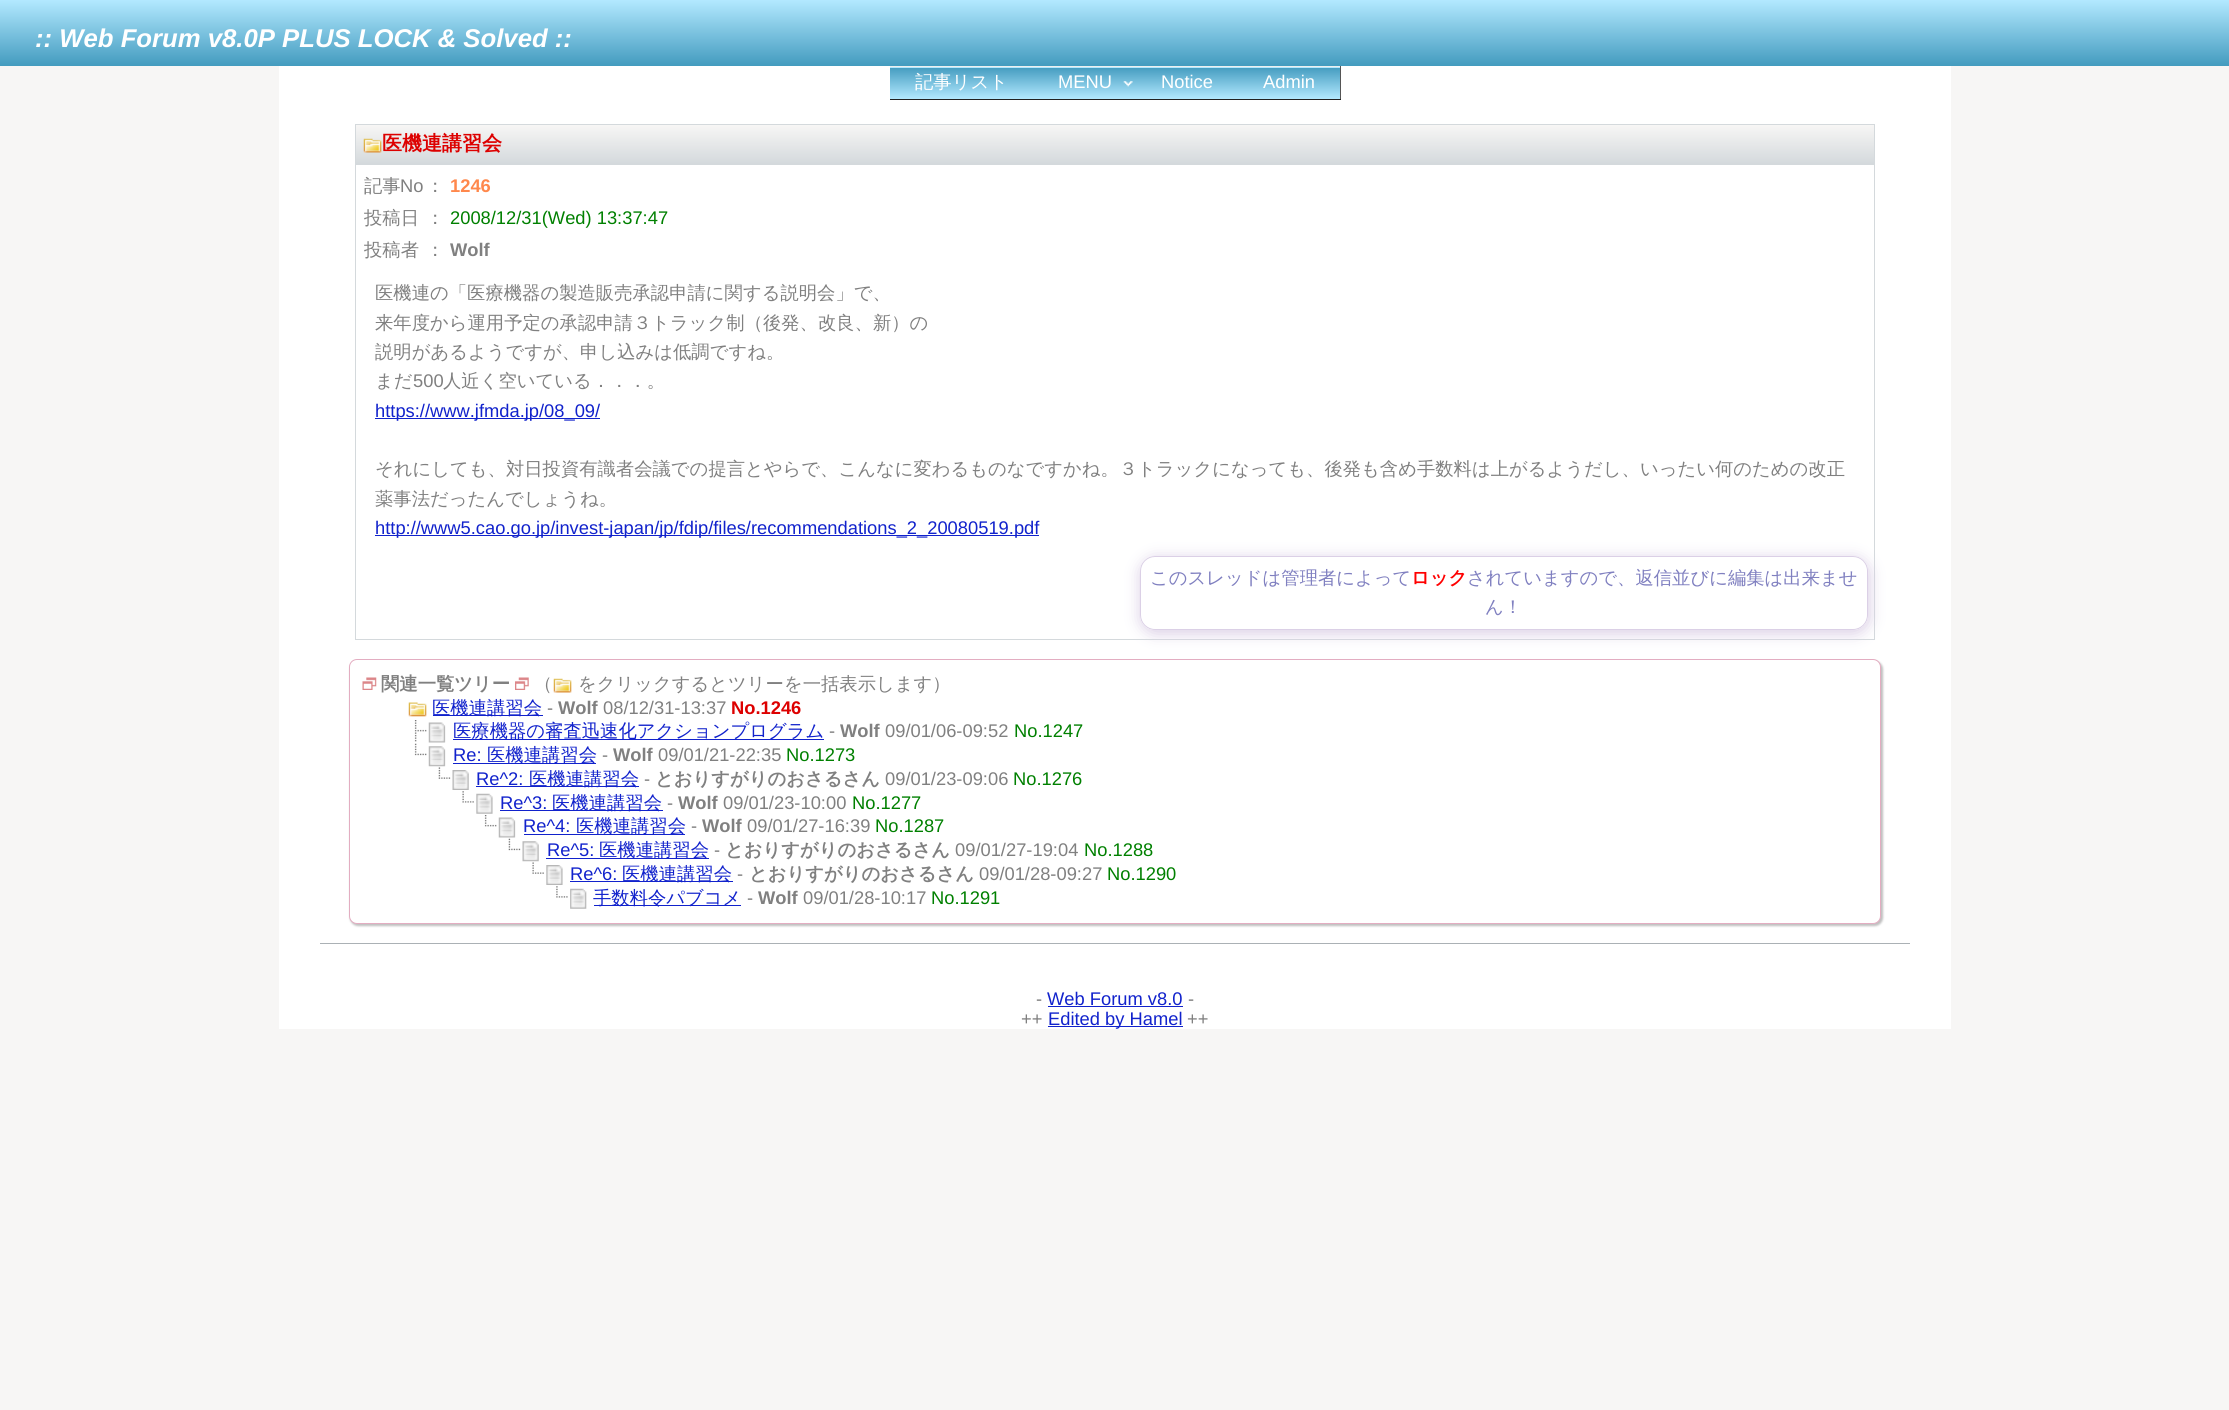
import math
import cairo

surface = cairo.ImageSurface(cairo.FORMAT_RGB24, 2229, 1410)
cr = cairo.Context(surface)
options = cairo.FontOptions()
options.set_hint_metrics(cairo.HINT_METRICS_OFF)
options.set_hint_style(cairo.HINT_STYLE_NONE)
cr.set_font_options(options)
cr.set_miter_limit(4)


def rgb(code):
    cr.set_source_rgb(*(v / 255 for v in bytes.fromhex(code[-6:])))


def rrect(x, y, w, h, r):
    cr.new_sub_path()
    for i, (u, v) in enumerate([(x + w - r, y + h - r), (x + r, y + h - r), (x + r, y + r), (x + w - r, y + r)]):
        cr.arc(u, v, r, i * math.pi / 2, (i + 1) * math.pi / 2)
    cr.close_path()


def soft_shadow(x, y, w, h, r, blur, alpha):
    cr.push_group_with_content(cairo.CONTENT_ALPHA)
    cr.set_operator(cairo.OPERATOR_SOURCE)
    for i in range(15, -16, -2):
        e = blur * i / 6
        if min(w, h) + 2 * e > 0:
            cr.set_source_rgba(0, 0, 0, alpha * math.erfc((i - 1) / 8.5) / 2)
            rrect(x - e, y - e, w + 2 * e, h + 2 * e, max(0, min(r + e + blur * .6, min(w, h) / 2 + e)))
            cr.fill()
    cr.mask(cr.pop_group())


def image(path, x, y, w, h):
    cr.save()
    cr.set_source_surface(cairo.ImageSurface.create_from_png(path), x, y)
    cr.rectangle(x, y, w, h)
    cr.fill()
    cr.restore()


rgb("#f7f6f5")
cr.paint()
gradient = cairo.LinearGradient(1115, 0, 1115, 66)
gradient.add_color_stop_rgba(0, 0.702, 0.914, 1, 1)
gradient.add_color_stop_rgba(1, 0.263, 0.608, 0.749, 1)
cr.set_source(gradient)
cr.rectangle(0, 0, 2229, 66)
cr.fill()
rgb("#ffffff")
cr.rectangle(279, 66, 1672, 963)
cr.fill()
gradient = cairo.LinearGradient(1115, 36, 1115, 68)
gradient.add_color_stop_rgba(0, 0.263, 0.608, 0.749, 1)
gradient.add_color_stop_rgba(1, 0.702, 0.914, 1, 1)
cr.set_source(gradient)
cr.rectangle(889, 67, 452, 1)
cr.fill()
gradient = cairo.LinearGradient(1115, 67, 1115, 99)
gradient.add_color_stop_rgba(0, 0.263, 0.608, 0.749, 1)
gradient.add_color_stop_rgba(1, 0.702, 0.914, 1, 1)
cr.set_source(gradient)
cr.rectangle(890, 68, 450, 31)
cr.fill()
for x, y, w, h, color in [
    (889, 66, 452, 1, "#eeeeee"),
    (1340, 66, 1, 34, "#555555"),
    (889, 99, 452, 1, "#222222"),
    (889, 66, 1, 34, "#ffffff"),
]:
    rgb(color)
    cr.rectangle(x, y, w, h)
    cr.fill()
image("img/1.png", 1123, 81, 10, 6)
gradient = cairo.LinearGradient(1115, 125, 1115, 164)
gradient.add_color_stop_rgba(0, 0.969, 0.965, 0.961, 1)
gradient.add_color_stop_rgba(1, 0.831, 0.851, 0.863, 1)
cr.set_source(gradient)
cr.rectangle(356, 125, 1518, 39)
cr.fill()
cr.rectangle(355.5, 124.5, 1519, 40)
rgb("#d4d9dc")
cr.set_line_width(1)
cr.stroke()
image("img/2.png", 363, 138, 19, 15)
for x, y, w, h, color in [
    (1874, 165, 1, 475, "#d4d9dc"),
    (355, 639, 1520, 1, "#d4d9dc"),
    (355, 165, 1, 475, "#d4d9dc"),
    (375, 418, 225, 1, "#1122cc"),
    (375, 535, 664, 1, "#1122cc"),
]:
    rgb(color)
    cr.rectangle(x, y, w, h)
    cr.fill()
cr.save()
cr.set_fill_rule(cairo.FILL_RULE_EVEN_ODD)
cr.new_path()
cr.move_to(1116, 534)
cr.line_to(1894, 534)
cr.line_to(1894, 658)
cr.line_to(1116, 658)
cr.close_path()
cr.move_to(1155, 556)
cr.line_to(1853, 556)
cr.curve_to(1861.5, 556, 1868, 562.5, 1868, 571)
cr.line_to(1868, 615)
cr.curve_to(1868, 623.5, 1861.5, 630, 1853, 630)
cr.line_to(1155, 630)
cr.curve_to(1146.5, 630, 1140, 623.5, 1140, 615)
cr.line_to(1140, 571)
cr.curve_to(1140, 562.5, 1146.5, 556, 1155, 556)
cr.close_path()
cr.clip()
rgb("#dbd0e6")
soft_shadow(1140, 558, 730, 76, 16, 7.5, 1)
cr.restore()
rrect(1140.5, 556.5, 727, 73, 14.5)
rgb("#dbd0e6")
cr.stroke()
rgb("#c0c0c0")
soft_shadow(350, 661, 1533, 265, 8, 1, 1)
rgb("#ffffff")
rrect(349.5, 659.5, 1531, 264, 7.5)
cr.fill_preserve()
rgb("#e3adc1")
cr.stroke()
image("img/3.png", 362, 677, 15, 13)
image("img/4.png", 515, 677, 14, 13)
image("img/5.png", 553, 678, 19, 15)
image("img/6.png", 408, 702, 19, 15)
rgb("#1122cc")
cr.rectangle(433, 715, 110, 1)
cr.fill()
image("img/7.png", 414, 720, 13, 22)
image("img/8.png", 428, 722, 18, 21)
cr.rectangle(453, 739, 371, 1)
cr.fill()
image("img/9.png", 414, 743, 13, 13)
image("img/10.png", 428, 746, 18, 21)
cr.rectangle(453, 763, 143, 1)
cr.fill()
image("img/11.png", 438, 767, 13, 12)
image("img/12.png", 452, 770, 17, 20)
cr.rectangle(476, 786, 163, 1)
cr.fill()
image("img/13.png", 462, 791, 12, 12)
image("img/14.png", 476, 793, 17, 21)
cr.rectangle(500, 810, 163, 1)
cr.fill()
image("img/15.png", 484, 815, 13, 12)
image("img/8.png", 498, 817, 18, 21)
cr.rectangle(524, 834, 161, 1)
cr.fill()
image("img/16.png", 508, 838, 13, 13)
image("img/17.png", 522, 841, 17, 21)
cr.rectangle(546, 858, 163, 1)
cr.fill()
image("img/18.png", 532, 862, 12, 12)
image("img/19.png", 546, 865, 17, 20)
cr.rectangle(570, 881, 163, 1)
cr.fill()
image("img/20.png", 556, 886, 12, 12)
image("img/21.png", 570, 888, 17, 21)
for x, y, w, h, color in [
    (594, 905, 147, 1, "#1122cc"),
    (320, 943, 1590, 1, "#abb1b5"),
    (1048, 1006, 135, 1, "#1122cc"),
    (1048, 1026, 135, 1, "#1122cc"),
]:
    rgb(color)
    cr.rectangle(x, y, w, h)
    cr.fill()
cr.select_font_face("Liberation Sans", cairo.FONT_SLANT_ITALIC, cairo.FONT_WEIGHT_BOLD)
cr.set_font_size(25.7)
rgb("#ffffff")
cr.move_to(35, 47)
cr.show_text(":: Web Forum v8.0P PLUS LOCK & Solved ::")
cr.select_font_face("WenQuanYi Zen Hei Medium")
cr.set_font_size(18.33)
cr.move_to(915, 88)
cr.show_text("記事リスト")
cr.select_font_face("Liberation Sans")
for x, y, s in [
    (1058, 88, "MENU"),
    (1161, 88, "Notice"),
    (1263, 88, "Admin"),
]:
    cr.move_to(x, y)
    cr.show_text(s)
cr.select_font_face("WenQuanYi Zen Hei", cairo.FONT_SLANT_NORMAL, cairo.FONT_WEIGHT_BOLD)
cr.set_font_size(20)
rgb("#dd0000")
cr.move_to(382, 150)
cr.show_text("医機連講習会")
cr.select_font_face("WenQuanYi Zen Hei Medium")
cr.set_font_size(18.33)
rgb("#808080")
cr.move_to(364, 192)
cr.show_text("記事")
cr.select_font_face("Liberation Sans")
cr.move_to(400, 192)
cr.show_text("No")
cr.select_font_face("WenQuanYi Zen Hei Medium")
cr.move_to(426, 192)
cr.show_text("：")
cr.select_font_face("Liberation Sans", cairo.FONT_SLANT_NORMAL, cairo.FONT_WEIGHT_BOLD)
rgb("#ff884c")
cr.move_to(450, 192)
cr.show_text("1246")
cr.select_font_face("WenQuanYi Zen Hei Medium")
rgb("#808080")
cr.move_to(364, 224)
cr.show_text("投稿日")
cr.move_to(426, 224)
cr.show_text("：")
cr.select_font_face("Liberation Sans")
rgb("#008000")
cr.move_to(450, 224)
cr.show_text("2008/12/31(Wed) 13:37:47")
cr.select_font_face("WenQuanYi Zen Hei Medium")
rgb("#808080")
cr.move_to(364, 256)
cr.show_text("投稿者")
cr.move_to(426, 256)
cr.show_text("：")
cr.select_font_face("Liberation Sans", cairo.FONT_SLANT_NORMAL, cairo.FONT_WEIGHT_BOLD)
cr.move_to(450, 256)
cr.show_text("Wolf")
cr.select_font_face("WenQuanYi Zen Hei Medium")
for x, y, s in [
    (375, 299, "医機連の「医療機器の製造販売承認申請に関する説明会」で、"),
    (375, 329, "来年度から運用予定の承認申請３トラック制（後発、改良、新）の"),
    (375, 358, "説明があるようですが、申し込みは低調ですね。"),
    (375, 387, "まだ"),
]:
    cr.move_to(x, y)
    cr.show_text(s)
cr.select_font_face("Liberation Sans")
cr.move_to(413, 387)
cr.show_text("500")
cr.select_font_face("WenQuanYi Zen Hei Medium")
cr.move_to(443, 387)
cr.show_text("人近く空いている．．．。")
cr.select_font_face("Liberation Sans")
rgb("#1122cc")
cr.move_to(375, 417)
cr.show_text("https://www.jfmda.jp/08_09/")
cr.select_font_face("WenQuanYi Zen Hei Medium")
rgb("#808080")
cr.move_to(375, 475)
cr.show_text("それにしても、対日投資有識者会議での提言とやらで、こんなに変わるものなですかね。３トラックになっても、後発も含め手数料は上がるようだし、いったい何のための改正")
cr.move_to(375, 505)
cr.show_text("薬事法だったんでしょうね。")
cr.select_font_face("Liberation Sans")
rgb("#1122cc")
cr.move_to(375, 534)
cr.show_text("http://www5.cao.go.jp/invest-japan/jp/fdip/files/recommendations_2_20080519.pdf")
cr.select_font_face("WenQuanYi Zen Hei Medium")
rgb("#8080c0")
cr.move_to(1150, 584)
cr.show_text("このスレッドは管理者によって")
cr.select_font_face("WenQuanYi Zen Hei", cairo.FONT_SLANT_NORMAL, cairo.FONT_WEIGHT_BOLD)
rgb("#ff0000")
cr.move_to(1411, 584)
cr.show_text("ロック")
cr.select_font_face("WenQuanYi Zen Hei Medium")
rgb("#8080c0")
cr.move_to(1467, 584)
cr.show_text("されていますので、返信並びに編集は出来ませ")
cr.move_to(1485, 613)
cr.show_text("ん！")
cr.select_font_face("WenQuanYi Zen Hei", cairo.FONT_SLANT_NORMAL, cairo.FONT_WEIGHT_BOLD)
rgb("#808080")
cr.move_to(381, 690)
cr.show_text("関連一覧ツリー")
cr.select_font_face("WenQuanYi Zen Hei Medium")
cr.move_to(534, 690)
cr.show_text("（")
cr.move_to(578, 690)
cr.show_text("をクリックするとツリーを一括表示します）")
rgb("#1122cc")
cr.move_to(432, 714)
cr.show_text("医機連講習会")
cr.select_font_face("Liberation Sans")
rgb("#808080")
cr.move_to(547, 714)
cr.show_text("-")
cr.select_font_face("Liberation Sans", cairo.FONT_SLANT_NORMAL, cairo.FONT_WEIGHT_BOLD)
cr.move_to(558, 714)
cr.show_text("Wolf")
cr.select_font_face("Liberation Sans")
cr.move_to(603, 714)
cr.show_text("08/12/31-13:37")
cr.select_font_face("Liberation Sans", cairo.FONT_SLANT_NORMAL, cairo.FONT_WEIGHT_BOLD)
rgb("#dd0000")
cr.move_to(731, 714)
cr.show_text("No.1246")
cr.select_font_face("WenQuanYi Zen Hei Medium")
rgb("#1122cc")
cr.move_to(453, 737)
cr.show_text("医療機器の審査迅速化アクションプログラム")
cr.select_font_face("Liberation Sans")
rgb("#808080")
cr.move_to(829, 737)
cr.show_text("-")
cr.select_font_face("Liberation Sans", cairo.FONT_SLANT_NORMAL, cairo.FONT_WEIGHT_BOLD)
cr.move_to(840, 737)
cr.show_text("Wolf")
cr.select_font_face("Liberation Sans")
cr.move_to(885, 737)
cr.show_text("09/01/06-09:52")
rgb("#008000")
cr.move_to(1014, 737)
cr.show_text("No.1247")
rgb("#1122cc")
cr.move_to(453, 761)
cr.show_text("Re:")
cr.select_font_face("WenQuanYi Zen Hei Medium")
cr.move_to(487, 761)
cr.show_text("医機連講習会")
cr.select_font_face("Liberation Sans")
rgb("#808080")
cr.move_to(602, 761)
cr.show_text("-")
cr.select_font_face("Liberation Sans", cairo.FONT_SLANT_NORMAL, cairo.FONT_WEIGHT_BOLD)
cr.move_to(613, 761)
cr.show_text("Wolf")
cr.select_font_face("Liberation Sans")
cr.move_to(658, 761)
cr.show_text("09/01/21-22:35")
rgb("#008000")
cr.move_to(786, 761)
cr.show_text("No.1273")
rgb("#1122cc")
cr.move_to(476, 785)
cr.show_text("Re^2:")
cr.select_font_face("WenQuanYi Zen Hei Medium")
cr.move_to(529, 785)
cr.show_text("医機連講習会")
cr.select_font_face("Liberation Sans")
rgb("#808080")
cr.move_to(644, 785)
cr.show_text("-")
cr.select_font_face("WenQuanYi Zen Hei", cairo.FONT_SLANT_NORMAL, cairo.FONT_WEIGHT_BOLD)
cr.move_to(655, 785)
cr.show_text("とおりすがりのおさるさん")
cr.select_font_face("Liberation Sans")
cr.move_to(885, 785)
cr.show_text("09/01/23-09:06")
rgb("#008000")
cr.move_to(1013, 785)
cr.show_text("No.1276")
rgb("#1122cc")
cr.move_to(500, 809)
cr.show_text("Re^3:")
cr.select_font_face("WenQuanYi Zen Hei Medium")
cr.move_to(552, 809)
cr.show_text("医機連講習会")
cr.select_font_face("Liberation Sans")
rgb("#808080")
cr.move_to(667, 809)
cr.show_text("-")
cr.select_font_face("Liberation Sans", cairo.FONT_SLANT_NORMAL, cairo.FONT_WEIGHT_BOLD)
cr.move_to(678, 809)
cr.show_text("Wolf")
cr.select_font_face("Liberation Sans")
cr.move_to(723, 809)
cr.show_text("09/01/23-10:00")
rgb("#008000")
cr.move_to(852, 809)
cr.show_text("No.1277")
rgb("#1122cc")
cr.move_to(523, 832)
cr.show_text("Re^4:")
cr.select_font_face("WenQuanYi Zen Hei Medium")
cr.move_to(576, 832)
cr.show_text("医機連講習会")
cr.select_font_face("Liberation Sans")
rgb("#808080")
cr.move_to(691, 832)
cr.show_text("-")
cr.select_font_face("Liberation Sans", cairo.FONT_SLANT_NORMAL, cairo.FONT_WEIGHT_BOLD)
cr.move_to(702, 832)
cr.show_text("Wolf")
cr.select_font_face("Liberation Sans")
cr.move_to(747, 832)
cr.show_text("09/01/27-16:39")
rgb("#008000")
cr.move_to(875, 832)
cr.show_text("No.1287")
rgb("#1122cc")
cr.move_to(547, 856)
cr.show_text("Re^5:")
cr.select_font_face("WenQuanYi Zen Hei Medium")
cr.move_to(599, 856)
cr.show_text("医機連講習会")
cr.select_font_face("Liberation Sans")
rgb("#808080")
cr.move_to(714, 856)
cr.show_text("-")
cr.select_font_face("WenQuanYi Zen Hei", cairo.FONT_SLANT_NORMAL, cairo.FONT_WEIGHT_BOLD)
cr.move_to(725, 856)
cr.show_text("とおりすがりのおさるさん")
cr.select_font_face("Liberation Sans")
cr.move_to(955, 856)
cr.show_text("09/01/27-19:04")
rgb("#008000")
cr.move_to(1084, 856)
cr.show_text("No.1288")
rgb("#1122cc")
cr.move_to(570, 880)
cr.show_text("Re^6:")
cr.select_font_face("WenQuanYi Zen Hei Medium")
cr.move_to(622, 880)
cr.show_text("医機連講習会")
cr.select_font_face("Liberation Sans")
rgb("#808080")
cr.move_to(737, 880)
cr.show_text("-")
cr.select_font_face("WenQuanYi Zen Hei", cairo.FONT_SLANT_NORMAL, cairo.FONT_WEIGHT_BOLD)
cr.move_to(749, 880)
cr.show_text("とおりすがりのおさるさん")
cr.select_font_face("Liberation Sans")
cr.move_to(979, 880)
cr.show_text("09/01/28-09:27")
rgb("#008000")
cr.move_to(1107, 880)
cr.show_text("No.1290")
cr.select_font_face("WenQuanYi Zen Hei Medium")
rgb("#1122cc")
cr.move_to(593, 904)
cr.show_text("手数料令パブコメ")
cr.select_font_face("Liberation Sans")
rgb("#808080")
cr.move_to(747, 904)
cr.show_text("-")
cr.select_font_face("Liberation Sans", cairo.FONT_SLANT_NORMAL, cairo.FONT_WEIGHT_BOLD)
cr.move_to(758, 904)
cr.show_text("Wolf")
cr.select_font_face("Liberation Sans")
cr.move_to(803, 904)
cr.show_text("09/01/28-10:17")
rgb("#008000")
cr.move_to(931, 904)
cr.show_text("No.1291")
rgb("#808080")
cr.move_to(1036, 1005)
cr.show_text("-")
rgb("#1122cc")
cr.move_to(1047, 1005)
cr.show_text("Web Forum v8.0")
rgb("#808080")
cr.move_to(1188, 1005)
cr.show_text("-")
cr.move_to(1021, 1025)
cr.show_text("++")
rgb("#1122cc")
cr.move_to(1048, 1025)
cr.show_text("Edited by Hamel")
rgb("#808080")
cr.move_to(1187, 1025)
cr.show_text("++")
surface.write_to_png("page.png")
